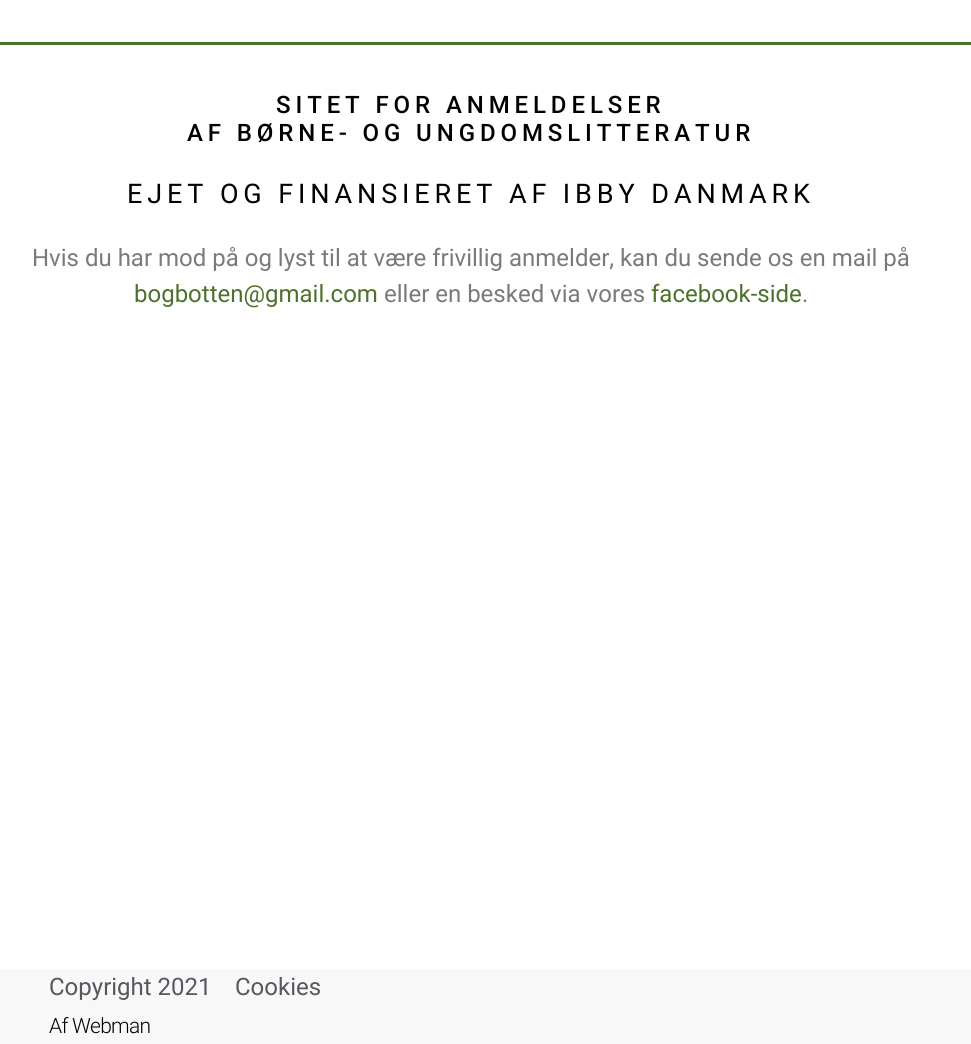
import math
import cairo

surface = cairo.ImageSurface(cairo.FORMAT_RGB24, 971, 1044)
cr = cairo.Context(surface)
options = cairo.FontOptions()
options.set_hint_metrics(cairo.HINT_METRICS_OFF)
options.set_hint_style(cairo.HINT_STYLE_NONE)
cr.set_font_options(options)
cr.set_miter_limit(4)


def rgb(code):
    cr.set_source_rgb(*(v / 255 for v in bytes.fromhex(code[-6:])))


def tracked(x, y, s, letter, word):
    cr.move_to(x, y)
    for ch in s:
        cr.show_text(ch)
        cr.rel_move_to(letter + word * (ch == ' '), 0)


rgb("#ffffff")
cr.paint()
rgb("#4c712d")
cr.rectangle(0, 42, 971, 3)
cr.fill()
rgb("#f8f8f8")
cr.rectangle(0, 969, 971, 75)
cr.fill()
cr.select_font_face("Roboto Medium")
cr.set_font_size(24)
rgb("#000000")
tracked(276, 113, "SITET FOR ANMELDELSER", 4.9, 0)
tracked(187, 141, "AF BØRNE- OG UNGDOMSLITTERATUR", 4.9, 0)
cr.select_font_face("Roboto")
cr.set_font_size(27)
tracked(127, 203, "EJET OG FINANSIERET AF IBBY DANMARK", 4.9, 0)
cr.set_font_size(24)
rgb("#7a7a7a")
cr.move_to(32, 266)
cr.show_text("Hvis du har mod på og lyst til at være frivillig anmelder, kan du sende os en mail på")
rgb("#4c712d")
cr.move_to(134, 302)
cr.show_text("bogbotten@gmail.com")
rgb("#7a7a7a")
cr.move_to(384, 302)
cr.show_text("eller en besked via vores")
rgb("#4c712d")
cr.move_to(651, 302)
cr.show_text("facebook-side")
rgb("#7a7a7a")
cr.move_to(802, 302)
cr.show_text(".")
rgb("#54595f")
cr.move_to(49, 995)
cr.show_text("Copyright 2021")
cr.move_to(235, 995)
cr.show_text("Cookies")
cr.select_font_face("Roboto Light")
cr.set_font_size(21)
rgb("#000000")
tracked(49, 1033, "Af Webman", -0.75, 0)
surface.write_to_png("page.png")
